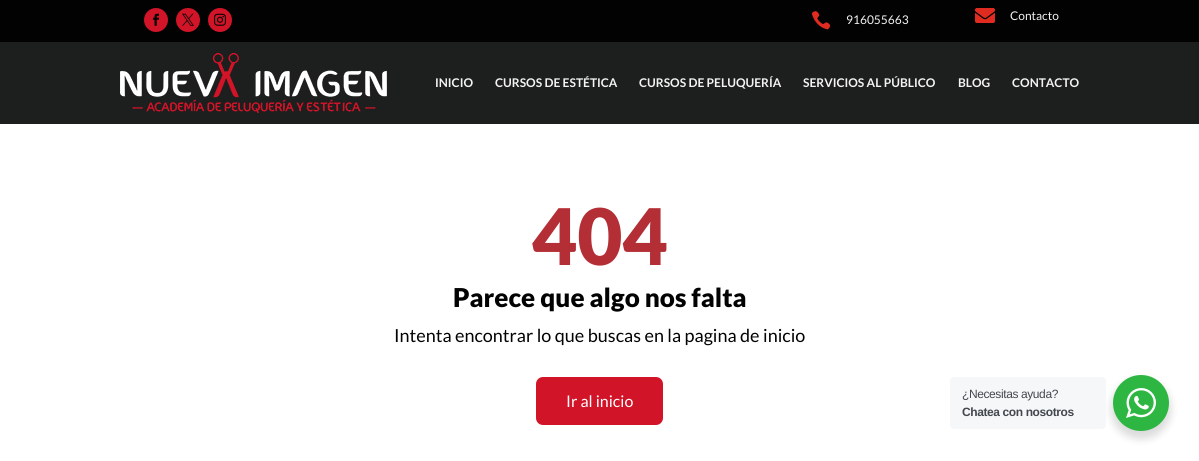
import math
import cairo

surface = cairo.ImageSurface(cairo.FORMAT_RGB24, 1199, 461)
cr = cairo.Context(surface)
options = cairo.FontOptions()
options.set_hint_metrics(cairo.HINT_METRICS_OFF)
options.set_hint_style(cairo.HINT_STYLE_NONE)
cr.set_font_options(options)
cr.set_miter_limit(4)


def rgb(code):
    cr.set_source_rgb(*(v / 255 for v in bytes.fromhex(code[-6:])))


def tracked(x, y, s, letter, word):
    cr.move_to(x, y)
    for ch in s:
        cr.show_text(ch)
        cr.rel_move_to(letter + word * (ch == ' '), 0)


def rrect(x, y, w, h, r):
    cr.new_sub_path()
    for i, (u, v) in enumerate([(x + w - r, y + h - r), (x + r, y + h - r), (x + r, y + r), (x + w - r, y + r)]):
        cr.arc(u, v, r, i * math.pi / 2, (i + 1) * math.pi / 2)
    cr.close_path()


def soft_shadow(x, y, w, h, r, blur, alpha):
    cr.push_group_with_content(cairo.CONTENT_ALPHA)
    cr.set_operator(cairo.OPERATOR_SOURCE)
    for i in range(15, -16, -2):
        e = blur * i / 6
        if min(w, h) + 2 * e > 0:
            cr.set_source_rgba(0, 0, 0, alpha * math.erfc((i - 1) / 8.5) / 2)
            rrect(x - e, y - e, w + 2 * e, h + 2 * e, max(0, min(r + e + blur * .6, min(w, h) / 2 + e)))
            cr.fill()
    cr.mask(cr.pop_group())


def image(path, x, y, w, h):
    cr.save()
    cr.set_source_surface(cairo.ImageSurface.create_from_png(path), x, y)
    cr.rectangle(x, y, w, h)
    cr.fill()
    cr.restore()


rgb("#ffffff")
cr.paint()
rgb("#020202")
cr.rectangle(0, 0, 1199, 42)
cr.fill()
rgb("#d11428")
cr.arc(156, 20, 12, 0, 2 * math.pi)
cr.fill()
image("img/1.png", 153, 13, 6, 13)
cr.arc(188, 20, 12, 0, 2 * math.pi)
cr.fill()
image("img/2.png", 182, 13, 12, 13)
cr.arc(220, 20, 12, 0, 2 * math.pi)
cr.fill()
image("img/3.png", 214, 13, 12, 13)
image("img/4.png", 811, 11, 20, 19)
image("img/5.png", 975, 8, 20, 15)
rgb("#1d1e1e")
cr.rectangle(0, 42, 1199, 82)
cr.fill()
image("img/6.png", 120, 53, 267, 60)
rgb("#d11428")
rrect(536, 377, 127, 48, 7)
cr.fill()
rgb("#000000")
soft_shadow(1111, 379, 60, 60, 30, 4, 0.14)
rgb("#f5f7f9")
rrect(950, 377, 156, 52, 4)
cr.fill()
rgb("#2db742")
cr.arc(1141, 403, 28, 0, 2 * math.pi)
cr.fill()
image("img/7.png", 1126, 388, 30, 30)
cr.select_font_face("Lato")
cr.set_font_size(12)
rgb("#f3f3f3")
cr.move_to(846, 24)
cr.show_text("916055663")
cr.move_to(1010, 20)
cr.show_text("Contacto")
cr.select_font_face("Lato", cairo.FONT_SLANT_NORMAL, cairo.FONT_WEIGHT_BOLD)
for x, y, s in [
    (435, 87, "INICIO"),
    (495, 87, "CURSOS DE ESTÉTICA"),
    (639, 87, "CURSOS DE PELUQUERÍA"),
    (803, 87, "SERVICIOS AL PÚBLICO"),
    (958, 87, "BLOG"),
    (1012, 87, "CONTACTO"),
]:
    cr.move_to(x, y)
    cr.show_text(s)
cr.select_font_face("Lato Black")
cr.set_font_size(78)
rgb("#b42e35")
cr.move_to(532, 265)
cr.show_text("404")
cr.set_font_size(26)
rgb("#020202")
cr.move_to(453, 307)
cr.show_text("Parece que algo nos falta")
cr.select_font_face("Lato")
cr.set_font_size(18)
cr.move_to(394, 342)
cr.show_text("Intenta encontrar lo que buscas en la pagina de inicio")
cr.set_font_size(16)
rgb("#ffffff")
cr.move_to(566, 407)
cr.show_text("Ir al inicio")
cr.select_font_face("Liberation Sans")
cr.set_font_size(12)
rgb("#43474e")
tracked(962, 398, "¿Necesitas ayuda?", -0.4, 0)
cr.select_font_face("Liberation Sans", cairo.FONT_SLANT_NORMAL, cairo.FONT_WEIGHT_BOLD)
tracked(962, 416, "Chatea con nosotros", -0.4, 0)
surface.write_to_png("page.png")
